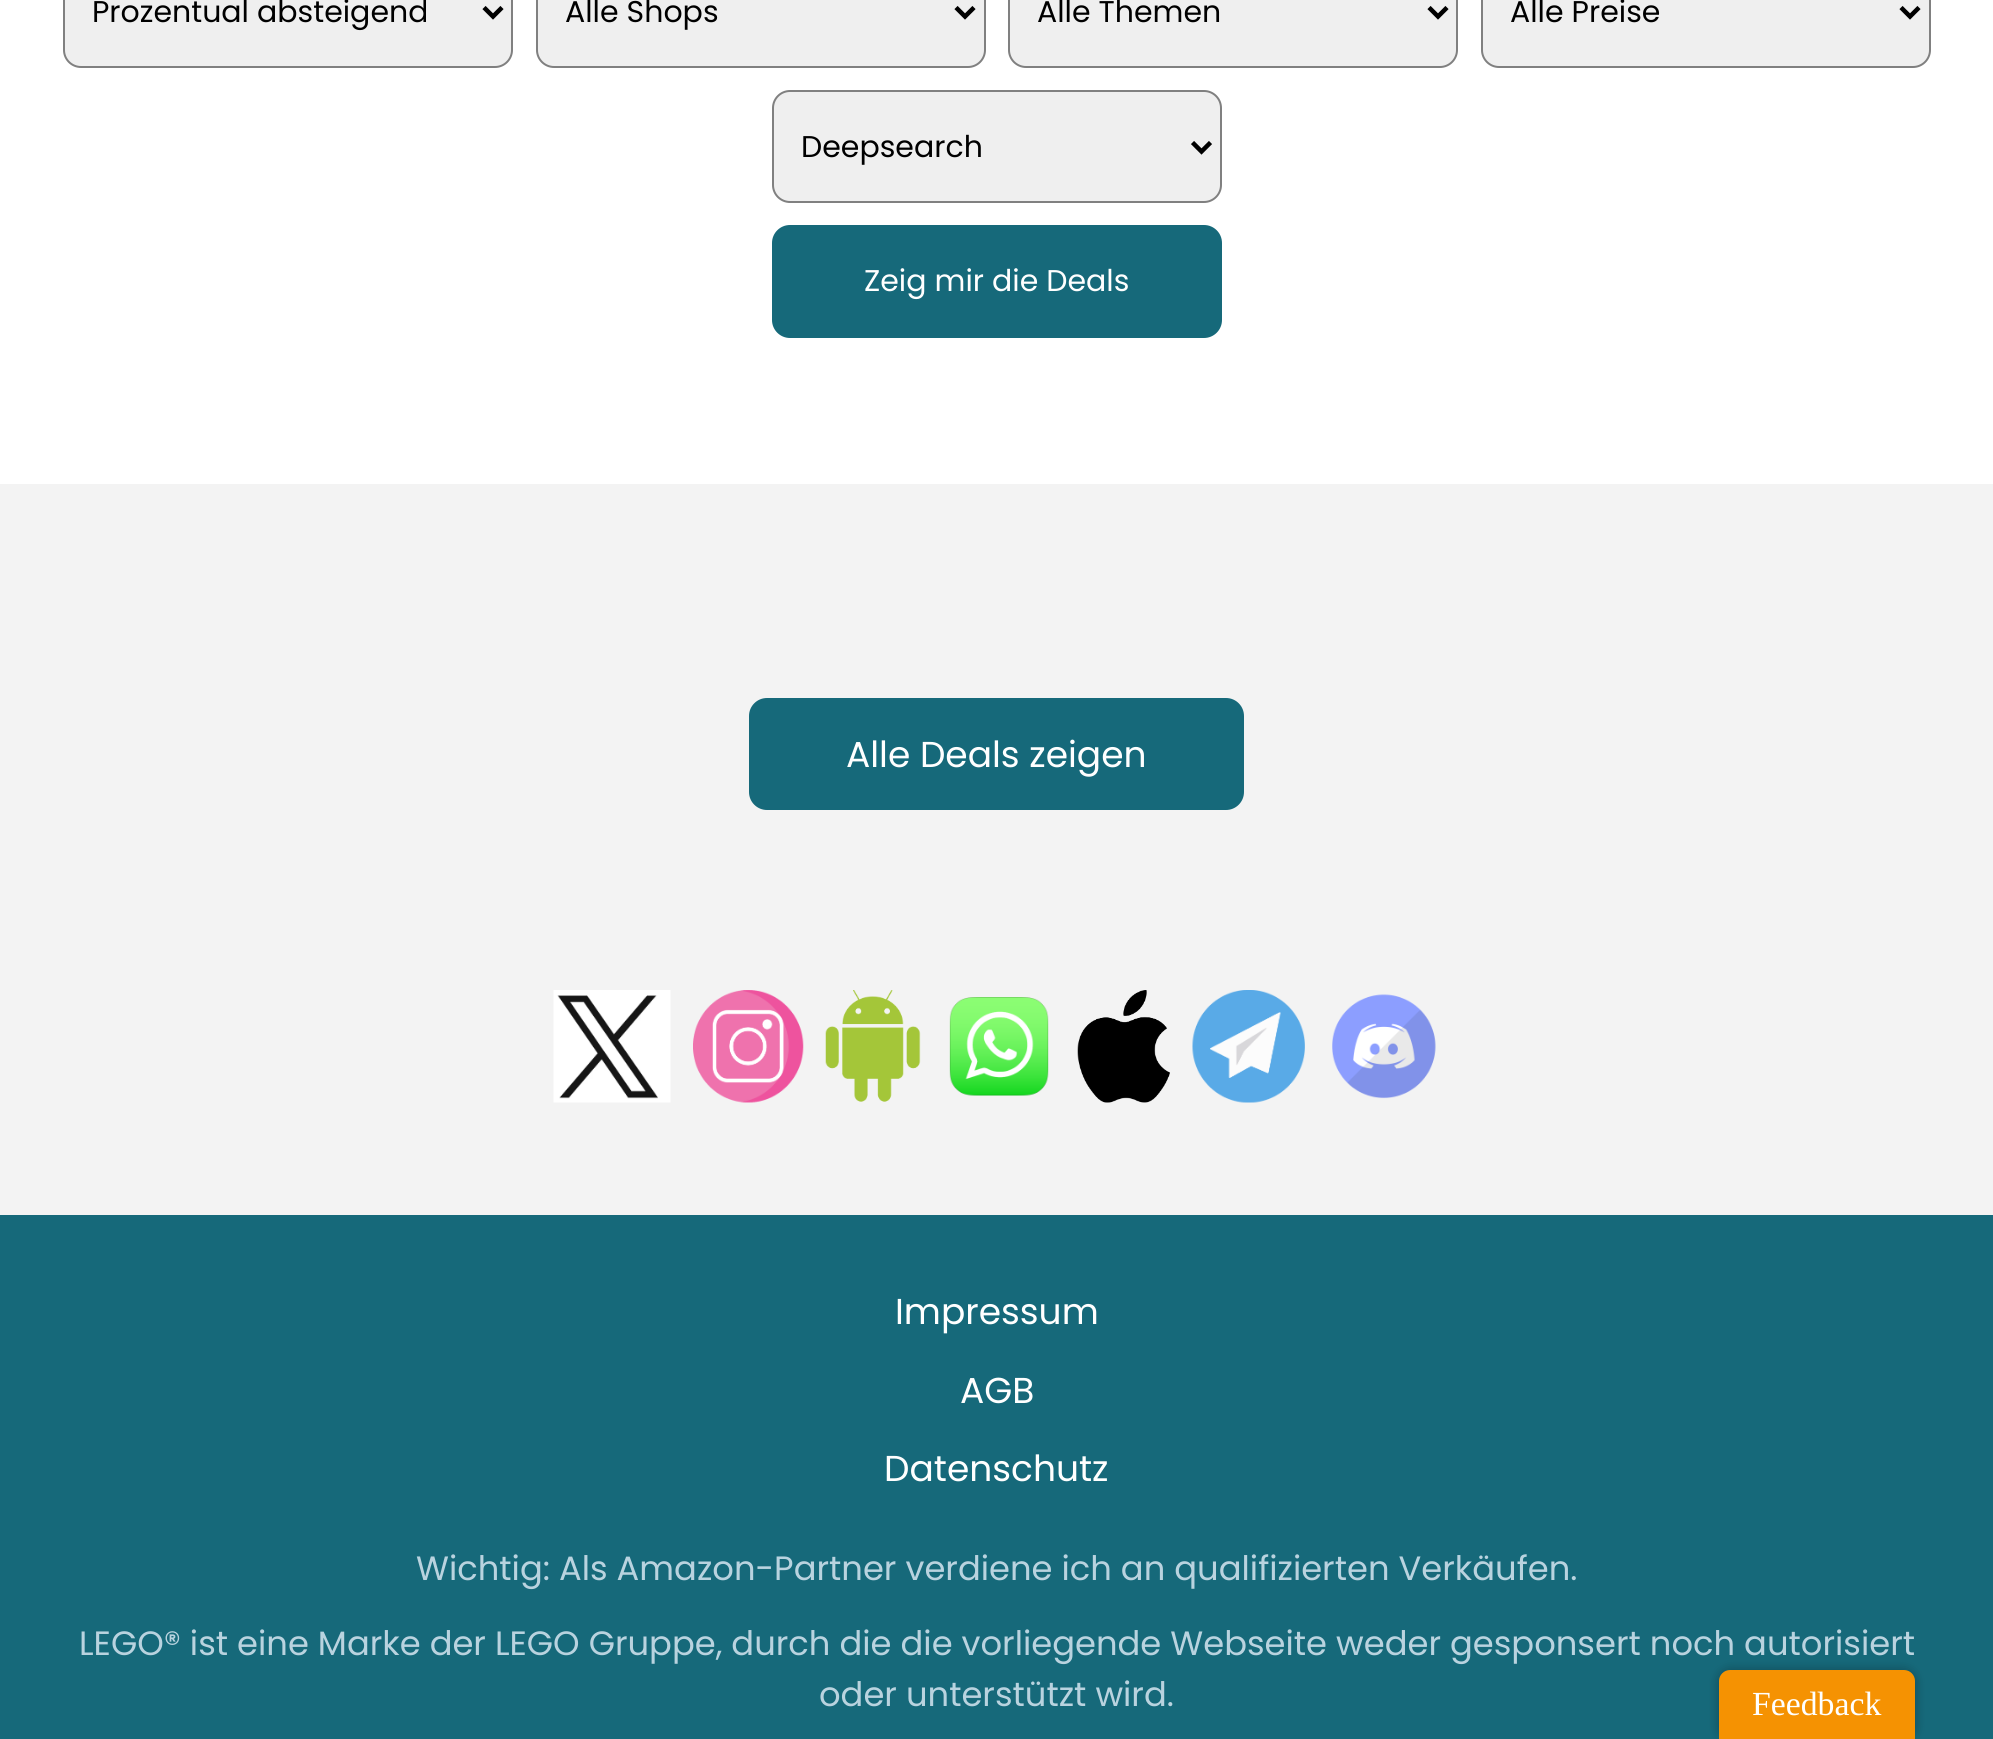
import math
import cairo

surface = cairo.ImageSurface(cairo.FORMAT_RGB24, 1993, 1739)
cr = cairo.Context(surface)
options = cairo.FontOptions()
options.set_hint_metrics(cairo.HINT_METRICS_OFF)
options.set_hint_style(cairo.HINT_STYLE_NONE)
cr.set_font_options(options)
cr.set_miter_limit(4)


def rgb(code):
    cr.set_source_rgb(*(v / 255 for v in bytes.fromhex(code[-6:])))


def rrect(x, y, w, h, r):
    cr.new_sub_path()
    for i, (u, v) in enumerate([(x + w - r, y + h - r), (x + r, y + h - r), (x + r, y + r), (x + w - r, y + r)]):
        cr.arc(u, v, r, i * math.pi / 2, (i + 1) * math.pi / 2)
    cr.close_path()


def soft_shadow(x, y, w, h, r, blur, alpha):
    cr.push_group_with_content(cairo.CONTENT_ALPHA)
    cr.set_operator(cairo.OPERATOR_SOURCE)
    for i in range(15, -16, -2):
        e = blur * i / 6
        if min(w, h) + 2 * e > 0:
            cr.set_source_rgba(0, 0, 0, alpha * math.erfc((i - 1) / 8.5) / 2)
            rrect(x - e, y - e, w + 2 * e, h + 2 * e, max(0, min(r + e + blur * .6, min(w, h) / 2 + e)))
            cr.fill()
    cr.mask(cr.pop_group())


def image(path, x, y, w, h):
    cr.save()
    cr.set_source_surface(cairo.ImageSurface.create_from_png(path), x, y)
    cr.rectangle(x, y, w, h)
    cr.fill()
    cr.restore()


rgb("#ffffff")
cr.paint()
rgb("#efefef")
rrect(64, -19, 448, 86, 17)
cr.fill_preserve()
rgb("#808080")
cr.stroke()
cr.new_path()
cr.move_to(484, 7.5)
cr.line_to(493, 16.5)
cr.line_to(502, 7.5)
rgb("#000000")
cr.set_line_width(4.5)
cr.stroke()
rgb("#efefef")
rrect(537, -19, 448, 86, 17)
cr.fill_preserve()
rgb("#808080")
cr.set_line_width(2)
cr.stroke()
cr.new_path()
cr.move_to(956, 7.5)
cr.line_to(965, 16.5)
cr.line_to(974, 7.5)
rgb("#000000")
cr.set_line_width(4.5)
cr.stroke()
rgb("#efefef")
rrect(1009, -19, 448, 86, 17)
cr.fill_preserve()
rgb("#808080")
cr.set_line_width(2)
cr.stroke()
cr.new_path()
cr.move_to(1429, 7.5)
cr.line_to(1438, 16.5)
cr.line_to(1447, 7.5)
rgb("#000000")
cr.set_line_width(4.5)
cr.stroke()
rgb("#efefef")
rrect(1482, -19, 448, 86, 17)
cr.fill_preserve()
rgb("#808080")
cr.set_line_width(2)
cr.stroke()
cr.new_path()
cr.move_to(1901, 7.5)
cr.line_to(1910, 16.5)
cr.line_to(1919, 7.5)
rgb("#000000")
cr.set_line_width(4.5)
cr.stroke()
rgb("#efefef")
rrect(773, 91, 448, 111, 17)
cr.fill_preserve()
rgb("#808080")
cr.set_line_width(2)
cr.stroke()
cr.new_path()
cr.move_to(1192.5, 142.5)
cr.line_to(1201.5, 151.5)
cr.line_to(1210.5, 142.5)
rgb("#000000")
cr.set_line_width(4.5)
cr.stroke()
rgb("#16697a")
rrect(772, 225, 450, 113, 18)
cr.fill()
rgb("#f3f3f3")
cr.rectangle(0, 484, 1993, 731)
cr.fill()
rgb("#16697a")
rrect(749, 698, 495, 112, 18)
cr.fill()
image("img/1.png", 553, 990, 118, 113)
image("img/2.png", 693, 990, 111, 113)
image("img/3.png", 825, 990, 96, 112)
image("img/4.png", 949, 997, 100, 99)
image("img/5.png", 1077, 990, 93, 113)
image("img/6.png", 1192, 990, 113, 113)
image("img/7.png", 1332, 994, 104, 105)
cr.rectangle(0, 1215, 1993, 524)
cr.fill()
rgb("#000000")
soft_shadow(1719, 1670, 196, 69, 11, 5.5, 0.3)
rgb("#f59202")
cr.new_path()
cr.move_to(1730, 1670)
cr.line_to(1904, 1670)
cr.curve_to(1910, 1670, 1915, 1675, 1915, 1681)
cr.line_to(1915, 1739)
cr.line_to(1719, 1739)
cr.line_to(1719, 1681)
cr.curve_to(1719, 1675, 1724, 1670, 1730, 1670)
cr.close_path()
cr.fill()
cr.select_font_face("Poppins")
cr.set_font_size(30)
rgb("#000000")
for x, y, s in [
    (92, 22, "Prozentual absteigend"),
    (565, 22, "Alle Shops"),
    (1037, 22, "Alle Themen"),
    (1510, 22, "Alle Preise"),
    (801, 157, "Deepsearch"),
]:
    cr.move_to(x, y)
    cr.show_text(s)
rgb("#ffffff")
cr.move_to(864, 291)
cr.show_text("Zeig mir die Deals")
cr.set_font_size(36)
for x, y, s in [
    (846, 767, "Alle Deals zeigen"),
    (895, 1324, "Impressum"),
    (960, 1403, "AGB"),
    (884, 1481, "Datenschutz"),
]:
    cr.move_to(x, y)
    cr.show_text(s)
cr.set_font_size(33.75)
rgb("#b9d3df")
for x, y, s in [
    (416, 1580, "Wichtig: Als Amazon-Partner verdiene ich an qualifizierten Verkäufen."),
    (79, 1655, "LEGO® ist eine Marke der LEGO Gruppe, durch die die vorliegende Webseite weder gesponsert noch autorisiert"),
    (819, 1706, "oder unterstützt wird."),
]:
    cr.move_to(x, y)
    cr.show_text(s)
cr.select_font_face("Liberation Serif")
rgb("#ffffff")
cr.move_to(1752, 1715)
cr.show_text("Feedback")
surface.write_to_png("page.png")
